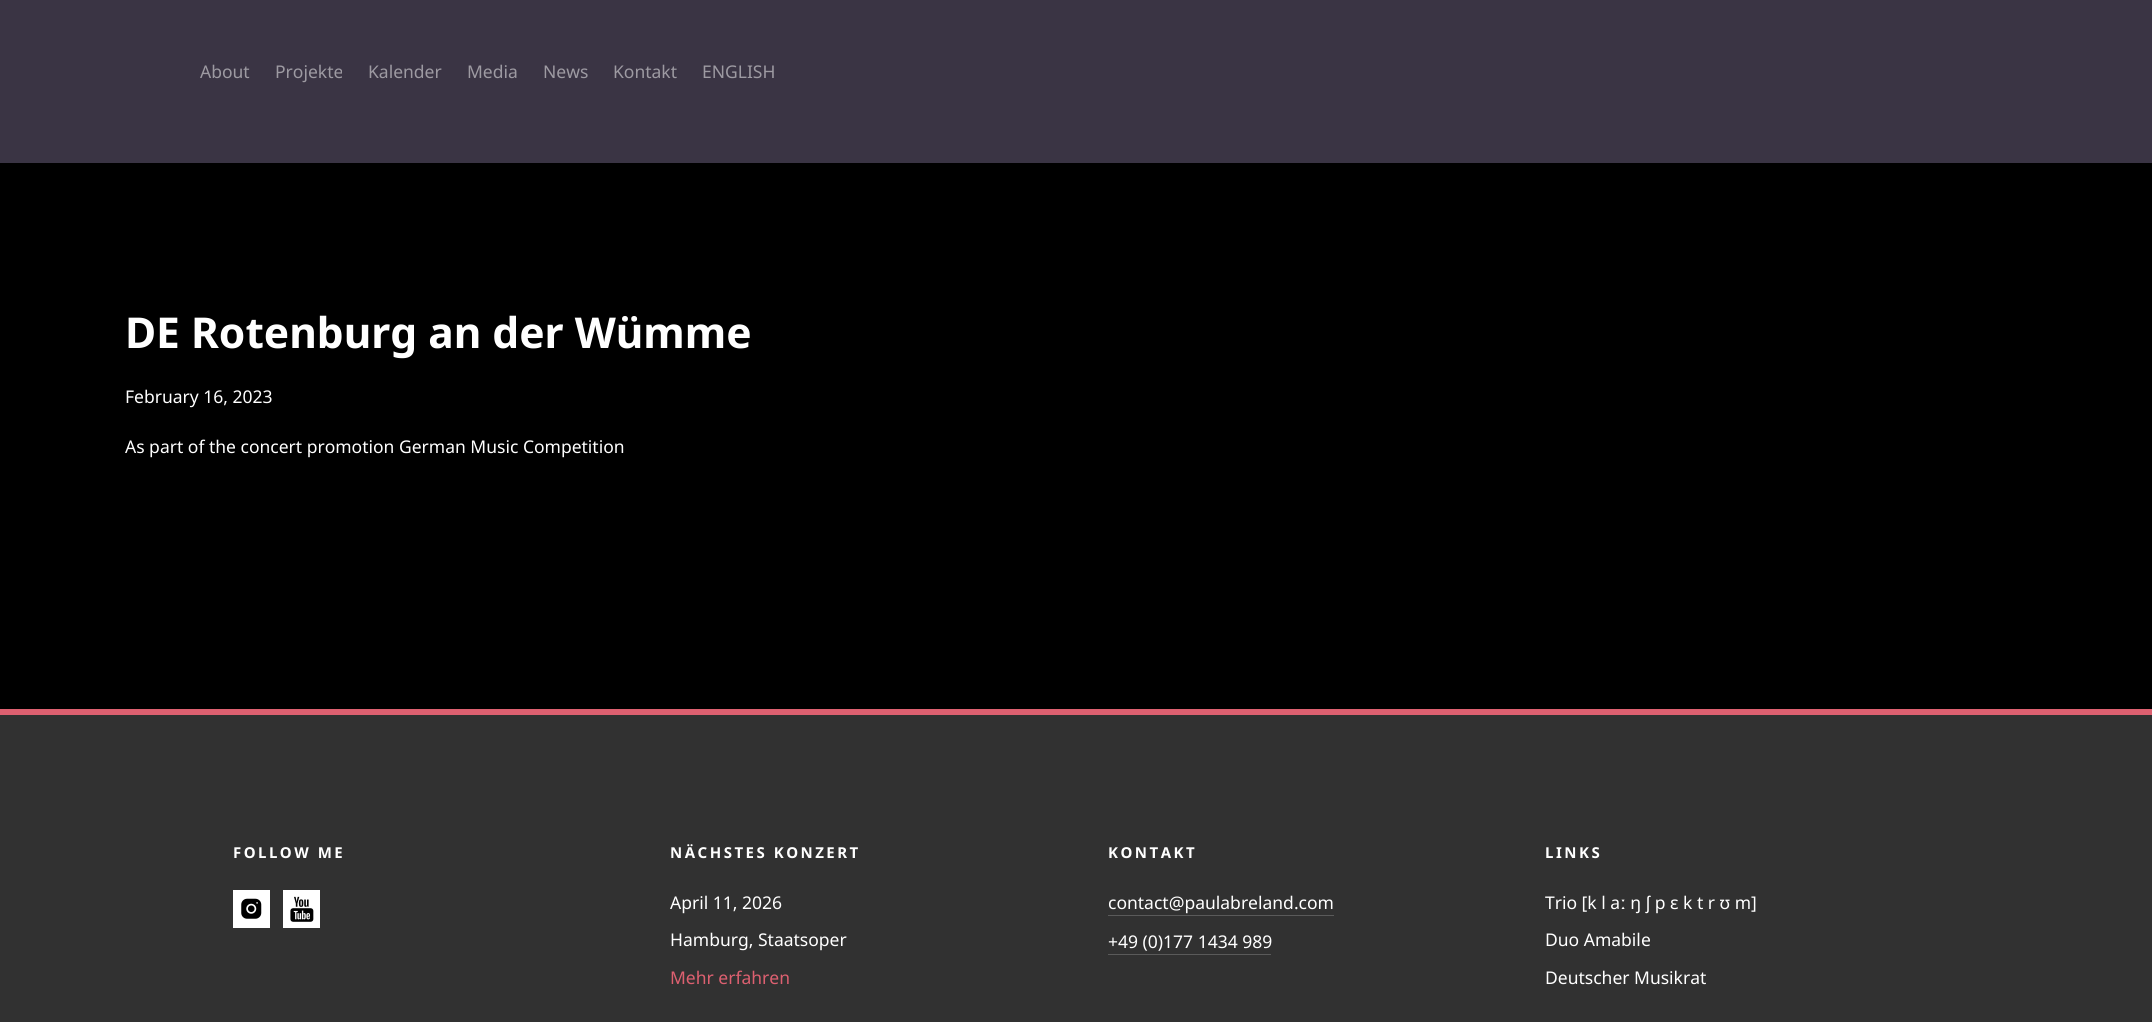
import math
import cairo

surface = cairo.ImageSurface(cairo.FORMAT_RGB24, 2152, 1022)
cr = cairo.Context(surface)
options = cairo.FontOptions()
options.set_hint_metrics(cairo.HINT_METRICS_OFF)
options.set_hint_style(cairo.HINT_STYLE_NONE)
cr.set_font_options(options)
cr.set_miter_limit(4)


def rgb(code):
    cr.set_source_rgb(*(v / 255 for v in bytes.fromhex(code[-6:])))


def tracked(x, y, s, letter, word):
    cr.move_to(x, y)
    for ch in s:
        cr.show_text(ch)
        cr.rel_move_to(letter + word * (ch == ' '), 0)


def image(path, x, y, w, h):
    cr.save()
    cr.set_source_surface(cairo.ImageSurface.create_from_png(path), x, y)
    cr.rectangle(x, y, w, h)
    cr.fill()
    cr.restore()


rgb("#000000")
cr.paint()
for x, y, w, h, color in [
    (0, 0, 2152, 163, "#3a3444"),
    (0, 715, 2152, 307, "#313131"),
    (0, 709, 2152, 6, "#dd6070"),
    (233, 890, 37, 38, "#ffffff"),
]:
    rgb(color)
    cr.rectangle(x, y, w, h)
    cr.fill()
image("img/1.png", 241, 898, 21, 21)
cr.rectangle(283, 890, 37, 38)
cr.fill()
image("img/2.png", 290, 896, 24, 26)
rgb("#5a5a5a")
cr.rectangle(1108, 915, 226, 1)
cr.fill()
cr.rectangle(1108, 954, 163, 1)
cr.fill()
cr.select_font_face("Noto Sans")
cr.set_font_size(17.5)
rgb("#9d9aa2")
for x, y, s in [
    (200, 78, "About"),
    (275, 78, "Projekte"),
    (368, 78, "Kalender"),
    (467, 78, "Media"),
    (543, 78, "News"),
    (613, 78, "Kontakt"),
    (702, 78, "ENGLISH"),
]:
    cr.move_to(x, y)
    cr.show_text(s)
cr.select_font_face("Noto Sans", cairo.FONT_SLANT_NORMAL, cairo.FONT_WEIGHT_BOLD)
cr.set_font_size(42.5)
rgb("#ffffff")
cr.move_to(125, 348)
cr.show_text("DE Rotenburg an der Wümme")
cr.select_font_face("Noto Sans")
cr.set_font_size(17.5)
cr.move_to(125, 403)
cr.show_text("February 16, 2023")
cr.move_to(125, 453)
cr.show_text("As part of the concert promotion German Music Competition")
cr.select_font_face("Noto Sans", cairo.FONT_SLANT_NORMAL, cairo.FONT_WEIGHT_BOLD)
cr.set_font_size(15)
tracked(233, 858, "FOLLOW ME", 2.5, 0)
tracked(670, 858, "NÄCHSTES KONZERT", 2.5, 0)
cr.select_font_face("Noto Sans")
cr.set_font_size(17.5)
cr.move_to(670, 909)
cr.show_text("April 11, 2026")
cr.move_to(670, 946)
cr.show_text("Hamburg, Staatsoper")
rgb("#dd6070")
cr.move_to(670, 984)
cr.show_text("Mehr erfahren")
cr.select_font_face("Noto Sans", cairo.FONT_SLANT_NORMAL, cairo.FONT_WEIGHT_BOLD)
cr.set_font_size(15)
rgb("#ffffff")
tracked(1108, 858, "KONTAKT", 2.5, 0)
cr.select_font_face("Noto Sans")
cr.set_font_size(17.5)
cr.move_to(1108, 909)
cr.show_text("contact@paulabreland.com")
cr.move_to(1108, 948)
cr.show_text("+49 (0)177 1434 989")
cr.select_font_face("Noto Sans", cairo.FONT_SLANT_NORMAL, cairo.FONT_WEIGHT_BOLD)
cr.set_font_size(15)
tracked(1545, 858, "LINKS", 2.5, 0)
cr.select_font_face("Noto Sans")
cr.set_font_size(17.5)
for x, y, s in [
    (1545, 909, "Trio [k l aː ŋ ʃ p ɛ k t r ʊ m]"),
    (1545, 946, "Duo Amabile"),
    (1545, 984, "Deutscher Musikrat"),
]:
    cr.move_to(x, y)
    cr.show_text(s)
surface.write_to_png("page.png")
